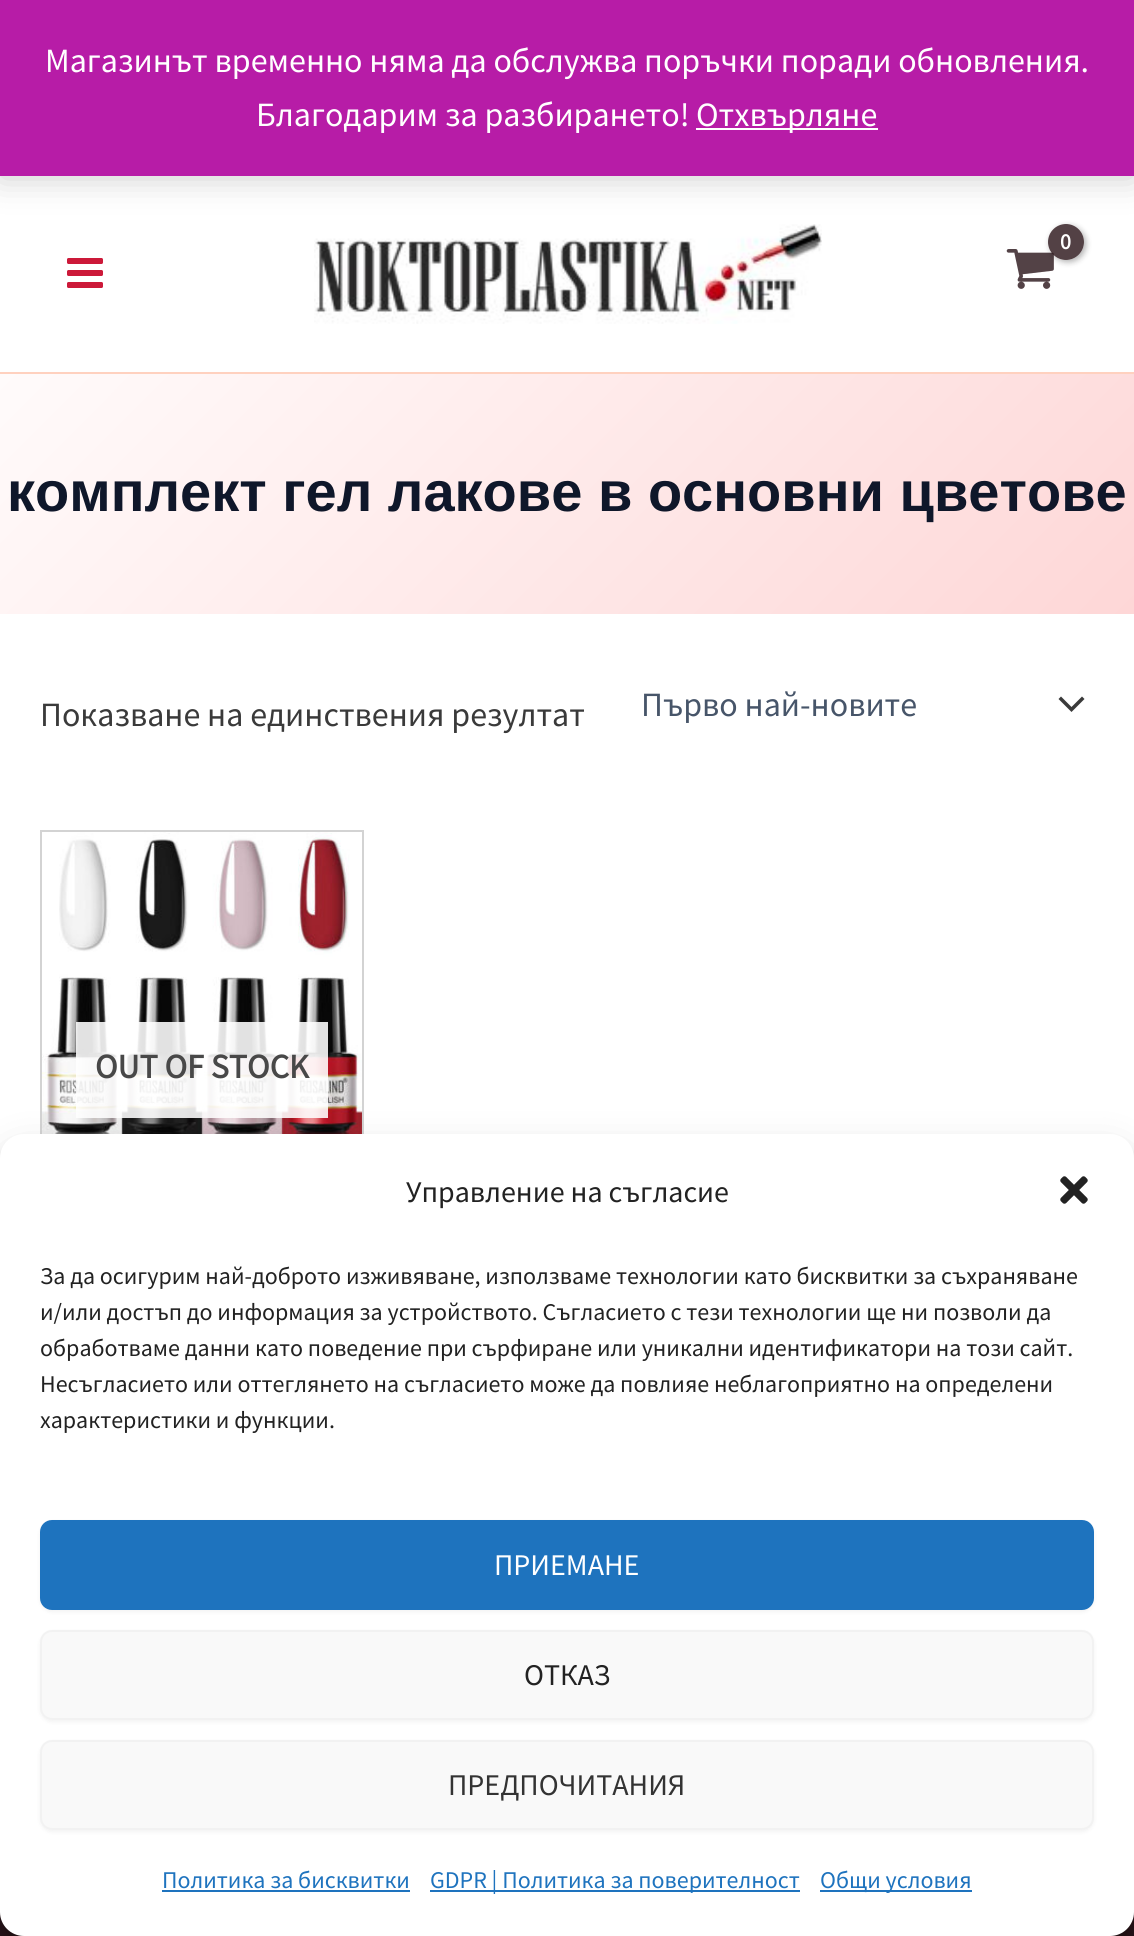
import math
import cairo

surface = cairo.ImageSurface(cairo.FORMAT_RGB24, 1134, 1936)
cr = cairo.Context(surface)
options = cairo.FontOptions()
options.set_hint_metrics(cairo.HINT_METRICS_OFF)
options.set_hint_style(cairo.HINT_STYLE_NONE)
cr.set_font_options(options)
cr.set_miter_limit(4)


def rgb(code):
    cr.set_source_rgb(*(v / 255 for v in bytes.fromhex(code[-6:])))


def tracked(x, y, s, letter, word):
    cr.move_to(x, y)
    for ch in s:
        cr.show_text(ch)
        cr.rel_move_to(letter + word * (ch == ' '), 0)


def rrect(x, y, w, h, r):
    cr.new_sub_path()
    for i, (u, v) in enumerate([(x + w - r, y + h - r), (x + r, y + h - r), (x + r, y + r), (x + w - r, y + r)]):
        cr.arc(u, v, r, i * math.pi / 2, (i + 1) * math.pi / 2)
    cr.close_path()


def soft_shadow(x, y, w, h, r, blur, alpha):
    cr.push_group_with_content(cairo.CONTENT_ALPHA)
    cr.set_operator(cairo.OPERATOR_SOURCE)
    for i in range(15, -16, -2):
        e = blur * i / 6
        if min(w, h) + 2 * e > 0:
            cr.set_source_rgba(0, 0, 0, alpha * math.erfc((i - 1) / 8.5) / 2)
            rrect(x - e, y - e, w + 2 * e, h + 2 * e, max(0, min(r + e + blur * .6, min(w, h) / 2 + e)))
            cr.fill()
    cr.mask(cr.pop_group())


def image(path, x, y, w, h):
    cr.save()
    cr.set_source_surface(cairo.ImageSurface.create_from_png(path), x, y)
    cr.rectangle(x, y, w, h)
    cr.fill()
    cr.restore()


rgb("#ffffff")
cr.paint()
image("img/1.png", 314, 224, 508, 100)
image("img/2.png", 1006, 249, 48, 40)
cr.save()
cr.set_fill_rule(cairo.FILL_RULE_EVEN_ODD)
cr.new_path()
cr.move_to(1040, 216)
cr.line_to(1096, 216)
cr.line_to(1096, 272)
cr.line_to(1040, 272)
cr.close_path()
cr.move_to(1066, 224)
cr.curve_to(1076, 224, 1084, 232, 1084, 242)
cr.curve_to(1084, 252, 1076, 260, 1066, 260)
cr.curve_to(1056, 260, 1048, 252, 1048, 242)
cr.curve_to(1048, 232, 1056, 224, 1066, 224)
cr.close_path()
cr.clip()
rgb("#000000")
soft_shadow(1050, 226, 36, 36, 18, 3, 0.3)
cr.restore()
cr.set_source_rgba(0.169, 0.086, 0.106, 0.81)
cr.arc(1066, 242, 18, 0, 2 * math.pi)
cr.fill()
rgb("#000000")
soft_shadow(0, 2, 1134, 176, 0, 17, 0.2)
for x, y, w, h, color in [
    (0, 0, 1134, 176, "#b71ca7"),
    (696, 128, 182, 2, "#ffffff"),
    (0, 372, 1134, 2, "#ffd1bf"),
]:
    rgb(color)
    cr.rectangle(x, y, w, h)
    cr.fill()
image("img/3.png", 67, 258, 36, 30)
gradient = cairo.LinearGradient(223, 151, 911, 838)
gradient.add_color_stop_rgba(0, 1, 0.984, 0.984, 1)
gradient.add_color_stop_rgba(1, 0.996, 0.843, 0.843, 1)
cr.set_source(gradient)
cr.rectangle(0, 374, 1134, 240)
cr.fill()
rgb("#3a3a3a")
cr.new_path()
cr.move_to(1058.5, 699)
cr.line_to(1071.5, 712)
cr.line_to(1084.5, 699)
cr.line_to(1082, 696.5)
cr.line_to(1071.5, 707)
cr.line_to(1061, 696.5)
cr.close_path()
cr.fill()
cr.rectangle(41, 831, 322, 652)
rgb("#d3d3d3")
cr.stroke()
image("img/4.png", 42, 832, 320, 302)
cr.set_source_rgba(1, 1, 1, 0.88)
cr.rectangle(76, 1022, 252, 96)
cr.fill()
rgb("#2b161b")
cr.rectangle(0, 1912, 1134, 24)
cr.fill()
rgb("#000000")
soft_shadow(0, 1146, 1134, 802, 24, 6, 0.23)
soft_shadow(0, 1154, 1134, 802, 24, 20, 0.19)
rgb("#ffffff")
rrect(0, 1134, 1134, 802, 24)
cr.fill()
image("img/5.png", 1060, 1176, 28, 28)
rgb("#000000")
soft_shadow(40, 1522, 1054, 90, 12, 2, 0.05)
rgb("#1e73be")
rrect(41, 1521, 1052, 88, 11)
cr.fill_preserve()
cr.stroke()
rgb("#000000")
soft_shadow(40, 1632, 1054, 90, 12, 2, 0.05)
rgb("#f9f9f9")
rrect(41, 1631, 1052, 88, 11)
cr.fill_preserve()
rgb("#f2f2f2")
cr.stroke()
rgb("#000000")
soft_shadow(40, 1742, 1054, 90, 12, 2, 0.05)
rgb("#f9f9f9")
rrect(41, 1741, 1052, 88, 11)
cr.fill_preserve()
rgb("#f2f2f2")
cr.stroke()
for x, y, w, h, color in [
    (162, 1890, 248, 2, "#1e73be"),
    (430, 1890, 370, 2, "#1e73be"),
    (820, 1890, 152, 2, "#1e73be"),
]:
    rgb(color)
    cr.rectangle(x, y, w, h)
    cr.fill()
cr.select_font_face("Source Sans Pro")
cr.set_font_size(34)
rgb("#ffffff")
for x, y, s in [
    (45, 72, "Магазинът временно няма да обслужва поръчки поради обновления."),
    (256, 126, "Благодарим за разбирането!"),
    (696, 126, "Отхвърляне"),
]:
    cr.move_to(x, y)
    cr.show_text(s)
cr.select_font_face("Source Sans Pro", cairo.FONT_SLANT_NORMAL, cairo.FONT_WEIGHT_BOLD)
cr.set_font_size(22)
tracked(1060, 249, "0", -1, 0)
cr.select_font_face("Liberation Sans", cairo.FONT_SLANT_NORMAL, cairo.FONT_WEIGHT_BOLD)
cr.set_font_size(56)
rgb("#0f172a")
cr.move_to(7, 511)
cr.show_text("комплект гел лакове в основни цветове")
cr.select_font_face("Source Sans Pro")
cr.set_font_size(34)
rgb("#3a3a3a")
cr.move_to(40, 726)
cr.show_text("Показване на единствения резултат")
rgb("#475569")
cr.move_to(641, 716)
cr.show_text("Първо най-новите")
cr.select_font_face("Source Sans Pro", cairo.FONT_SLANT_NORMAL, cairo.FONT_WEIGHT_BOLD)
rgb("#484848")
cr.move_to(95, 1078)
cr.show_text("OUT OF STOCK")
cr.select_font_face("Source Sans Pro")
cr.set_font_size(30)
rgb("#222222")
cr.move_to(406, 1202)
cr.show_text("Управление на съгласие")
cr.set_font_size(24)
for x, y, s in [
    (40, 1284, "За да осигурим най-доброто изживяване, използваме технологии като бисквитки за съхраняване"),
    (40, 1320, "и/или достъп до информация за устройството. Съгласието с тези технологии ще ни позволи да"),
    (40, 1356, "обработваме данни като поведение при сърфиране или уникални идентификатори на този сайт."),
    (40, 1392, "Несъгласието или оттеглянето на съгласието може да повлияе неблагоприятно на определени"),
    (40, 1428, "характеристики и функции."),
]:
    cr.move_to(x, y)
    cr.show_text(s)
cr.set_font_size(30)
rgb("#ffffff")
cr.move_to(494, 1575)
cr.show_text("ПРИЕМАНЕ")
rgb("#222222")
cr.move_to(524, 1685)
cr.show_text("ОТКАЗ")
rgb("#333333")
cr.move_to(448, 1795)
cr.show_text("ПРЕДПОЧИТАНИЯ")
cr.set_font_size(24)
rgb("#1e73be")
for x, y, s in [
    (162, 1888, "Политика за бисквитки"),
    (430, 1888, "GDPR | Политика за поверителност"),
    (820, 1888, "Общи условия"),
]:
    cr.move_to(x, y)
    cr.show_text(s)
surface.write_to_png("page.png")
